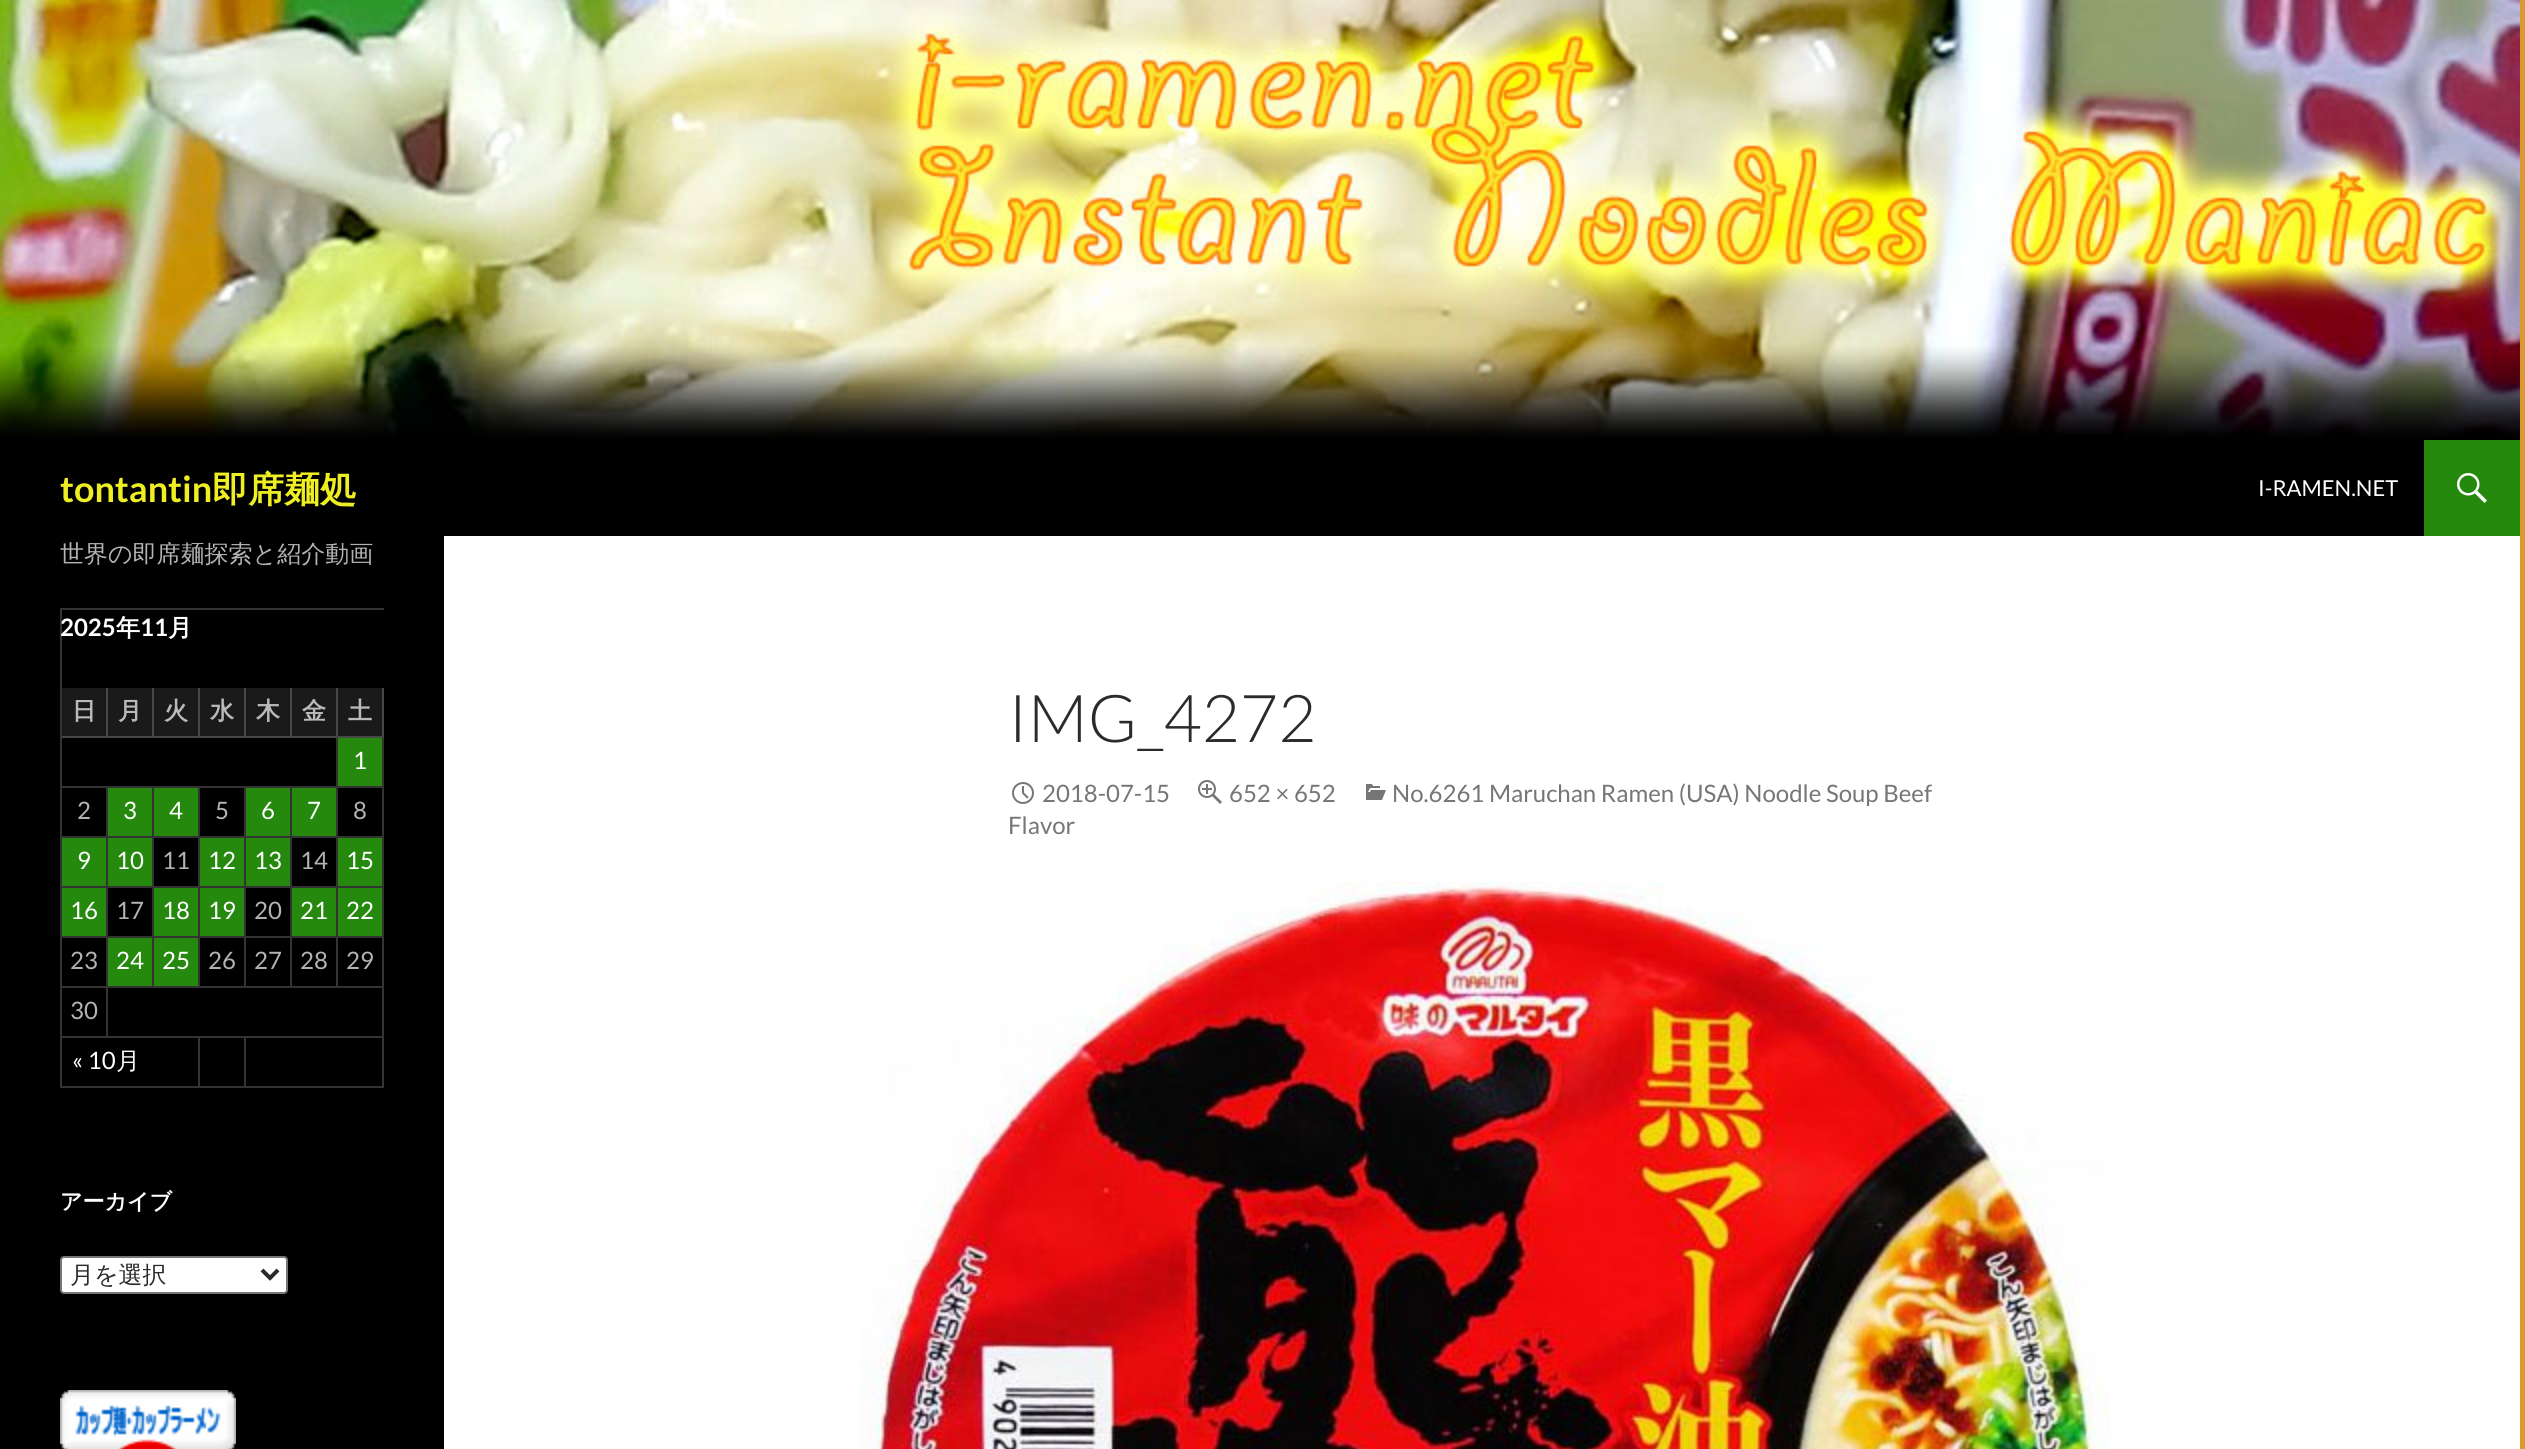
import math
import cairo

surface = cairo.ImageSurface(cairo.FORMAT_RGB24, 2525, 1449)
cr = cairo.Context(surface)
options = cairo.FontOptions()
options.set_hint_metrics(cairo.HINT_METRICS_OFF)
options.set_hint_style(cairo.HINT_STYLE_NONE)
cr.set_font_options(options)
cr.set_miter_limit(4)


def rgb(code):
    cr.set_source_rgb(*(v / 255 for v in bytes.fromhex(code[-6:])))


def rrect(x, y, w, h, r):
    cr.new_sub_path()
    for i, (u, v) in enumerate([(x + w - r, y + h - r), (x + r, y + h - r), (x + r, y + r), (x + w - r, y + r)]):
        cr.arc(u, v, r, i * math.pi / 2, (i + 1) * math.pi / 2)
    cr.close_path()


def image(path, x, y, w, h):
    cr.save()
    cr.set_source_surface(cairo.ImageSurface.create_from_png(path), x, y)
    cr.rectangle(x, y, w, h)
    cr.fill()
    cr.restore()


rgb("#dd9933")
cr.paint()
rgb("#ffffff")
cr.rectangle(444, 536, 2076, 913)
cr.fill()
image("img/1.png", 0, 0, 2520, 440)
rgb("#000000")
cr.rectangle(0, 440, 2424, 96)
cr.fill()
rgb("#24890d")
cr.rectangle(2424, 440, 96, 96)
cr.fill()
image("img/2.png", 2457, 473, 30, 30)
rgb("#000000")
cr.rectangle(0, 536, 444, 913)
cr.fill()
rgb("#333333")
cr.new_path()
cr.move_to(60, 608)
cr.line_to(384, 608)
cr.line_to(384, 610)
cr.line_to(62, 610)
cr.close_path()
cr.fill()
cr.set_source_rgba(1, 1, 1, 0.2)
cr.new_path()
cr.move_to(60, 1088)
cr.line_to(60, 608)
cr.line_to(62, 610)
cr.line_to(62, 1088)
cr.close_path()
cr.fill()
rgb("#1a1a1a")
cr.rectangle(62, 688, 322, 50)
cr.fill()
rgb("#484848")
cr.new_path()
cr.move_to(108, 688)
cr.line_to(108, 738)
cr.line_to(106, 736)
cr.line_to(106, 688)
cr.close_path()
cr.fill()
cr.set_source_rgba(1, 1, 1, 0.2)
cr.new_path()
cr.move_to(108, 738)
cr.line_to(62, 738)
cr.line_to(62, 736)
cr.line_to(106, 736)
cr.close_path()
cr.fill()
rgb("#484848")
cr.new_path()
cr.move_to(154, 688)
cr.line_to(154, 738)
cr.line_to(152, 736)
cr.line_to(152, 688)
cr.close_path()
cr.fill()
cr.set_source_rgba(1, 1, 1, 0.2)
cr.new_path()
cr.move_to(154, 738)
cr.line_to(108, 738)
cr.line_to(108, 736)
cr.line_to(152, 736)
cr.close_path()
cr.fill()
rgb("#484848")
cr.new_path()
cr.move_to(200, 688)
cr.line_to(200, 738)
cr.line_to(198, 736)
cr.line_to(198, 688)
cr.close_path()
cr.fill()
cr.set_source_rgba(1, 1, 1, 0.2)
cr.new_path()
cr.move_to(200, 738)
cr.line_to(154, 738)
cr.line_to(154, 736)
cr.line_to(198, 736)
cr.close_path()
cr.fill()
rgb("#484848")
cr.new_path()
cr.move_to(246, 688)
cr.line_to(246, 738)
cr.line_to(244, 736)
cr.line_to(244, 688)
cr.close_path()
cr.fill()
cr.set_source_rgba(1, 1, 1, 0.2)
cr.new_path()
cr.move_to(246, 738)
cr.line_to(200, 738)
cr.line_to(200, 736)
cr.line_to(244, 736)
cr.close_path()
cr.fill()
rgb("#484848")
cr.new_path()
cr.move_to(292, 688)
cr.line_to(292, 738)
cr.line_to(290, 736)
cr.line_to(290, 688)
cr.close_path()
cr.fill()
cr.set_source_rgba(1, 1, 1, 0.2)
cr.new_path()
cr.move_to(292, 738)
cr.line_to(246, 738)
cr.line_to(246, 736)
cr.line_to(290, 736)
cr.close_path()
cr.fill()
rgb("#484848")
cr.new_path()
cr.move_to(338, 688)
cr.line_to(338, 738)
cr.line_to(336, 736)
cr.line_to(336, 688)
cr.close_path()
cr.fill()
cr.set_source_rgba(1, 1, 1, 0.2)
cr.new_path()
cr.move_to(338, 738)
cr.line_to(292, 738)
cr.line_to(292, 736)
cr.line_to(336, 736)
cr.close_path()
cr.fill()
rgb("#484848")
cr.new_path()
cr.move_to(384, 688)
cr.line_to(384, 738)
cr.line_to(382, 736)
cr.line_to(382, 688)
cr.close_path()
cr.fill()
cr.set_source_rgba(1, 1, 1, 0.2)
cr.new_path()
cr.move_to(384, 738)
cr.line_to(338, 738)
cr.line_to(338, 736)
cr.line_to(382, 736)
cr.close_path()
cr.fill()
rgb("#333333")
cr.new_path()
cr.move_to(338, 738)
cr.line_to(338, 788)
cr.line_to(336, 786)
cr.line_to(336, 738)
cr.close_path()
cr.fill()
cr.set_source_rgba(1, 1, 1, 0.2)
cr.new_path()
cr.move_to(338, 788)
cr.line_to(62, 788)
cr.line_to(62, 786)
cr.line_to(336, 786)
cr.close_path()
cr.fill()
rgb("#333333")
cr.new_path()
cr.move_to(384, 738)
cr.line_to(384, 788)
cr.line_to(382, 786)
cr.line_to(382, 738)
cr.close_path()
cr.fill()
cr.set_source_rgba(1, 1, 1, 0.2)
cr.new_path()
cr.move_to(384, 788)
cr.line_to(338, 788)
cr.line_to(338, 786)
cr.line_to(382, 786)
cr.close_path()
cr.fill()
rgb("#24890d")
cr.rectangle(338, 738, 44, 48)
cr.fill()
rgb("#333333")
cr.new_path()
cr.move_to(108, 788)
cr.line_to(108, 838)
cr.line_to(106, 836)
cr.line_to(106, 788)
cr.close_path()
cr.fill()
cr.set_source_rgba(1, 1, 1, 0.2)
cr.new_path()
cr.move_to(108, 838)
cr.line_to(62, 838)
cr.line_to(62, 836)
cr.line_to(106, 836)
cr.close_path()
cr.fill()
rgb("#333333")
cr.new_path()
cr.move_to(154, 788)
cr.line_to(154, 838)
cr.line_to(152, 836)
cr.line_to(152, 788)
cr.close_path()
cr.fill()
cr.set_source_rgba(1, 1, 1, 0.2)
cr.new_path()
cr.move_to(154, 838)
cr.line_to(108, 838)
cr.line_to(108, 836)
cr.line_to(152, 836)
cr.close_path()
cr.fill()
rgb("#24890d")
cr.rectangle(108, 788, 44, 48)
cr.fill()
rgb("#333333")
cr.new_path()
cr.move_to(200, 788)
cr.line_to(200, 838)
cr.line_to(198, 836)
cr.line_to(198, 788)
cr.close_path()
cr.fill()
cr.set_source_rgba(1, 1, 1, 0.2)
cr.new_path()
cr.move_to(200, 838)
cr.line_to(154, 838)
cr.line_to(154, 836)
cr.line_to(198, 836)
cr.close_path()
cr.fill()
rgb("#24890d")
cr.rectangle(154, 788, 44, 48)
cr.fill()
rgb("#333333")
cr.new_path()
cr.move_to(246, 788)
cr.line_to(246, 838)
cr.line_to(244, 836)
cr.line_to(244, 788)
cr.close_path()
cr.fill()
cr.set_source_rgba(1, 1, 1, 0.2)
cr.new_path()
cr.move_to(246, 838)
cr.line_to(200, 838)
cr.line_to(200, 836)
cr.line_to(244, 836)
cr.close_path()
cr.fill()
rgb("#333333")
cr.new_path()
cr.move_to(292, 788)
cr.line_to(292, 838)
cr.line_to(290, 836)
cr.line_to(290, 788)
cr.close_path()
cr.fill()
cr.set_source_rgba(1, 1, 1, 0.2)
cr.new_path()
cr.move_to(292, 838)
cr.line_to(246, 838)
cr.line_to(246, 836)
cr.line_to(290, 836)
cr.close_path()
cr.fill()
rgb("#24890d")
cr.rectangle(246, 788, 44, 48)
cr.fill()
rgb("#333333")
cr.new_path()
cr.move_to(338, 788)
cr.line_to(338, 838)
cr.line_to(336, 836)
cr.line_to(336, 788)
cr.close_path()
cr.fill()
cr.set_source_rgba(1, 1, 1, 0.2)
cr.new_path()
cr.move_to(338, 838)
cr.line_to(292, 838)
cr.line_to(292, 836)
cr.line_to(336, 836)
cr.close_path()
cr.fill()
rgb("#24890d")
cr.rectangle(292, 788, 44, 48)
cr.fill()
rgb("#333333")
cr.new_path()
cr.move_to(384, 788)
cr.line_to(384, 838)
cr.line_to(382, 836)
cr.line_to(382, 788)
cr.close_path()
cr.fill()
cr.set_source_rgba(1, 1, 1, 0.2)
cr.new_path()
cr.move_to(384, 838)
cr.line_to(338, 838)
cr.line_to(338, 836)
cr.line_to(382, 836)
cr.close_path()
cr.fill()
rgb("#333333")
cr.new_path()
cr.move_to(108, 838)
cr.line_to(108, 888)
cr.line_to(106, 886)
cr.line_to(106, 838)
cr.close_path()
cr.fill()
cr.set_source_rgba(1, 1, 1, 0.2)
cr.new_path()
cr.move_to(108, 888)
cr.line_to(62, 888)
cr.line_to(62, 886)
cr.line_to(106, 886)
cr.close_path()
cr.fill()
rgb("#24890d")
cr.rectangle(62, 838, 44, 48)
cr.fill()
rgb("#333333")
cr.new_path()
cr.move_to(154, 838)
cr.line_to(154, 888)
cr.line_to(152, 886)
cr.line_to(152, 838)
cr.close_path()
cr.fill()
cr.set_source_rgba(1, 1, 1, 0.2)
cr.new_path()
cr.move_to(154, 888)
cr.line_to(108, 888)
cr.line_to(108, 886)
cr.line_to(152, 886)
cr.close_path()
cr.fill()
rgb("#24890d")
cr.rectangle(108, 838, 44, 48)
cr.fill()
rgb("#333333")
cr.new_path()
cr.move_to(200, 838)
cr.line_to(200, 888)
cr.line_to(198, 886)
cr.line_to(198, 838)
cr.close_path()
cr.fill()
cr.set_source_rgba(1, 1, 1, 0.2)
cr.new_path()
cr.move_to(200, 888)
cr.line_to(154, 888)
cr.line_to(154, 886)
cr.line_to(198, 886)
cr.close_path()
cr.fill()
rgb("#333333")
cr.new_path()
cr.move_to(246, 838)
cr.line_to(246, 888)
cr.line_to(244, 886)
cr.line_to(244, 838)
cr.close_path()
cr.fill()
cr.set_source_rgba(1, 1, 1, 0.2)
cr.new_path()
cr.move_to(246, 888)
cr.line_to(200, 888)
cr.line_to(200, 886)
cr.line_to(244, 886)
cr.close_path()
cr.fill()
rgb("#24890d")
cr.rectangle(200, 838, 44, 48)
cr.fill()
rgb("#333333")
cr.new_path()
cr.move_to(292, 838)
cr.line_to(292, 888)
cr.line_to(290, 886)
cr.line_to(290, 838)
cr.close_path()
cr.fill()
cr.set_source_rgba(1, 1, 1, 0.2)
cr.new_path()
cr.move_to(292, 888)
cr.line_to(246, 888)
cr.line_to(246, 886)
cr.line_to(290, 886)
cr.close_path()
cr.fill()
rgb("#24890d")
cr.rectangle(246, 838, 44, 48)
cr.fill()
rgb("#333333")
cr.new_path()
cr.move_to(338, 838)
cr.line_to(338, 888)
cr.line_to(336, 886)
cr.line_to(336, 838)
cr.close_path()
cr.fill()
cr.set_source_rgba(1, 1, 1, 0.2)
cr.new_path()
cr.move_to(338, 888)
cr.line_to(292, 888)
cr.line_to(292, 886)
cr.line_to(336, 886)
cr.close_path()
cr.fill()
rgb("#333333")
cr.new_path()
cr.move_to(384, 838)
cr.line_to(384, 888)
cr.line_to(382, 886)
cr.line_to(382, 838)
cr.close_path()
cr.fill()
cr.set_source_rgba(1, 1, 1, 0.2)
cr.new_path()
cr.move_to(384, 888)
cr.line_to(338, 888)
cr.line_to(338, 886)
cr.line_to(382, 886)
cr.close_path()
cr.fill()
rgb("#24890d")
cr.rectangle(338, 838, 44, 48)
cr.fill()
rgb("#333333")
cr.new_path()
cr.move_to(108, 888)
cr.line_to(108, 938)
cr.line_to(106, 936)
cr.line_to(106, 888)
cr.close_path()
cr.fill()
cr.set_source_rgba(1, 1, 1, 0.2)
cr.new_path()
cr.move_to(108, 938)
cr.line_to(62, 938)
cr.line_to(62, 936)
cr.line_to(106, 936)
cr.close_path()
cr.fill()
rgb("#24890d")
cr.rectangle(62, 888, 44, 48)
cr.fill()
rgb("#333333")
cr.new_path()
cr.move_to(154, 888)
cr.line_to(154, 938)
cr.line_to(152, 936)
cr.line_to(152, 888)
cr.close_path()
cr.fill()
cr.set_source_rgba(1, 1, 1, 0.2)
cr.new_path()
cr.move_to(154, 938)
cr.line_to(108, 938)
cr.line_to(108, 936)
cr.line_to(152, 936)
cr.close_path()
cr.fill()
rgb("#333333")
cr.new_path()
cr.move_to(200, 888)
cr.line_to(200, 938)
cr.line_to(198, 936)
cr.line_to(198, 888)
cr.close_path()
cr.fill()
cr.set_source_rgba(1, 1, 1, 0.2)
cr.new_path()
cr.move_to(200, 938)
cr.line_to(154, 938)
cr.line_to(154, 936)
cr.line_to(198, 936)
cr.close_path()
cr.fill()
rgb("#24890d")
cr.rectangle(154, 888, 44, 48)
cr.fill()
rgb("#333333")
cr.new_path()
cr.move_to(246, 888)
cr.line_to(246, 938)
cr.line_to(244, 936)
cr.line_to(244, 888)
cr.close_path()
cr.fill()
cr.set_source_rgba(1, 1, 1, 0.2)
cr.new_path()
cr.move_to(246, 938)
cr.line_to(200, 938)
cr.line_to(200, 936)
cr.line_to(244, 936)
cr.close_path()
cr.fill()
rgb("#24890d")
cr.rectangle(200, 888, 44, 48)
cr.fill()
rgb("#333333")
cr.new_path()
cr.move_to(292, 888)
cr.line_to(292, 938)
cr.line_to(290, 936)
cr.line_to(290, 888)
cr.close_path()
cr.fill()
cr.set_source_rgba(1, 1, 1, 0.2)
cr.new_path()
cr.move_to(292, 938)
cr.line_to(246, 938)
cr.line_to(246, 936)
cr.line_to(290, 936)
cr.close_path()
cr.fill()
rgb("#333333")
cr.new_path()
cr.move_to(338, 888)
cr.line_to(338, 938)
cr.line_to(336, 936)
cr.line_to(336, 888)
cr.close_path()
cr.fill()
cr.set_source_rgba(1, 1, 1, 0.2)
cr.new_path()
cr.move_to(338, 938)
cr.line_to(292, 938)
cr.line_to(292, 936)
cr.line_to(336, 936)
cr.close_path()
cr.fill()
rgb("#24890d")
cr.rectangle(292, 888, 44, 48)
cr.fill()
rgb("#333333")
cr.new_path()
cr.move_to(384, 888)
cr.line_to(384, 938)
cr.line_to(382, 936)
cr.line_to(382, 888)
cr.close_path()
cr.fill()
cr.set_source_rgba(1, 1, 1, 0.2)
cr.new_path()
cr.move_to(384, 938)
cr.line_to(338, 938)
cr.line_to(338, 936)
cr.line_to(382, 936)
cr.close_path()
cr.fill()
rgb("#24890d")
cr.rectangle(338, 888, 44, 48)
cr.fill()
rgb("#333333")
cr.new_path()
cr.move_to(108, 938)
cr.line_to(108, 988)
cr.line_to(106, 986)
cr.line_to(106, 938)
cr.close_path()
cr.fill()
cr.set_source_rgba(1, 1, 1, 0.2)
cr.new_path()
cr.move_to(108, 988)
cr.line_to(62, 988)
cr.line_to(62, 986)
cr.line_to(106, 986)
cr.close_path()
cr.fill()
rgb("#333333")
cr.new_path()
cr.move_to(154, 938)
cr.line_to(154, 988)
cr.line_to(152, 986)
cr.line_to(152, 938)
cr.close_path()
cr.fill()
cr.set_source_rgba(1, 1, 1, 0.2)
cr.new_path()
cr.move_to(154, 988)
cr.line_to(108, 988)
cr.line_to(108, 986)
cr.line_to(152, 986)
cr.close_path()
cr.fill()
rgb("#24890d")
cr.rectangle(108, 938, 44, 48)
cr.fill()
rgb("#333333")
cr.new_path()
cr.move_to(200, 938)
cr.line_to(200, 988)
cr.line_to(198, 986)
cr.line_to(198, 938)
cr.close_path()
cr.fill()
cr.set_source_rgba(1, 1, 1, 0.2)
cr.new_path()
cr.move_to(200, 988)
cr.line_to(154, 988)
cr.line_to(154, 986)
cr.line_to(198, 986)
cr.close_path()
cr.fill()
rgb("#24890d")
cr.rectangle(154, 938, 44, 48)
cr.fill()
rgb("#333333")
cr.new_path()
cr.move_to(246, 938)
cr.line_to(246, 988)
cr.line_to(244, 986)
cr.line_to(244, 938)
cr.close_path()
cr.fill()
cr.set_source_rgba(1, 1, 1, 0.2)
cr.new_path()
cr.move_to(246, 988)
cr.line_to(200, 988)
cr.line_to(200, 986)
cr.line_to(244, 986)
cr.close_path()
cr.fill()
rgb("#333333")
cr.new_path()
cr.move_to(292, 938)
cr.line_to(292, 988)
cr.line_to(290, 986)
cr.line_to(290, 938)
cr.close_path()
cr.fill()
cr.set_source_rgba(1, 1, 1, 0.2)
cr.new_path()
cr.move_to(292, 988)
cr.line_to(246, 988)
cr.line_to(246, 986)
cr.line_to(290, 986)
cr.close_path()
cr.fill()
rgb("#333333")
cr.new_path()
cr.move_to(338, 938)
cr.line_to(338, 988)
cr.line_to(336, 986)
cr.line_to(336, 938)
cr.close_path()
cr.fill()
cr.set_source_rgba(1, 1, 1, 0.2)
cr.new_path()
cr.move_to(338, 988)
cr.line_to(292, 988)
cr.line_to(292, 986)
cr.line_to(336, 986)
cr.close_path()
cr.fill()
rgb("#333333")
cr.new_path()
cr.move_to(384, 938)
cr.line_to(384, 988)
cr.line_to(382, 986)
cr.line_to(382, 938)
cr.close_path()
cr.fill()
cr.set_source_rgba(1, 1, 1, 0.2)
cr.new_path()
cr.move_to(384, 988)
cr.line_to(338, 988)
cr.line_to(338, 986)
cr.line_to(382, 986)
cr.close_path()
cr.fill()
rgb("#333333")
cr.new_path()
cr.move_to(108, 988)
cr.line_to(108, 1038)
cr.line_to(106, 1036)
cr.line_to(106, 988)
cr.close_path()
cr.fill()
cr.set_source_rgba(1, 1, 1, 0.2)
cr.new_path()
cr.move_to(108, 1038)
cr.line_to(62, 1038)
cr.line_to(62, 1036)
cr.line_to(106, 1036)
cr.close_path()
cr.fill()
rgb("#333333")
cr.new_path()
cr.move_to(384, 988)
cr.line_to(384, 1038)
cr.line_to(382, 1036)
cr.line_to(382, 988)
cr.close_path()
cr.fill()
cr.set_source_rgba(1, 1, 1, 0.2)
cr.new_path()
cr.move_to(384, 1038)
cr.line_to(108, 1038)
cr.line_to(108, 1036)
cr.line_to(382, 1036)
cr.close_path()
cr.fill()
rgb("#333333")
cr.new_path()
cr.move_to(200, 1038)
cr.line_to(200, 1088)
cr.line_to(198, 1086)
cr.line_to(198, 1038)
cr.close_path()
cr.fill()
cr.set_source_rgba(1, 1, 1, 0.2)
cr.new_path()
cr.move_to(200, 1088)
cr.line_to(62, 1088)
cr.line_to(62, 1086)
cr.line_to(198, 1086)
cr.close_path()
cr.fill()
rgb("#333333")
cr.new_path()
cr.move_to(246, 1038)
cr.line_to(246, 1088)
cr.line_to(244, 1086)
cr.line_to(244, 1038)
cr.close_path()
cr.fill()
cr.set_source_rgba(1, 1, 1, 0.2)
cr.new_path()
cr.move_to(246, 1088)
cr.line_to(200, 1088)
cr.line_to(200, 1086)
cr.line_to(244, 1086)
cr.close_path()
cr.fill()
rgb("#333333")
cr.new_path()
cr.move_to(384, 1038)
cr.line_to(384, 1088)
cr.line_to(382, 1086)
cr.line_to(382, 1038)
cr.close_path()
cr.fill()
cr.set_source_rgba(1, 1, 1, 0.2)
cr.new_path()
cr.move_to(384, 1088)
cr.line_to(246, 1088)
cr.line_to(246, 1086)
cr.line_to(382, 1086)
cr.close_path()
cr.fill()
rgb("#ffffff")
rrect(61, 1257, 226, 36, 3)
cr.fill_preserve()
rgb("#767676")
cr.stroke()
cr.new_path()
cr.move_to(262, 1270)
cr.line_to(270, 1278)
cr.line_to(278, 1270)
rgb("#2b2b2b")
cr.set_line_width(4)
cr.stroke()
image("img/3.png", 60, 1390, 176, 59)
image("img/4.png", 1366, 784, 20, 16)
image("img/5.png", 1012, 782, 22, 22)
image("img/6.png", 1198, 780, 24, 24)
image("img/7.png", 860, 882, 1250, 567)
cr.select_font_face("Lato", cairo.FONT_SLANT_NORMAL, cairo.FONT_WEIGHT_BOLD)
cr.set_font_size(36)
rgb("#eeee22")
cr.move_to(60, 502)
cr.show_text("tontantin")
cr.select_font_face("WenQuanYi Zen Hei", cairo.FONT_SLANT_NORMAL, cairo.FONT_WEIGHT_BOLD)
cr.move_to(212, 502)
cr.show_text("即席麺処")
cr.select_font_face("Lato")
cr.set_font_size(22)
rgb("#ffffff")
cr.move_to(2258, 496)
cr.show_text("I-RAMEN.NET")
cr.select_font_face("WenQuanYi Zen Hei Medium")
cr.set_font_size(24)
rgb("#b3b3b3")
cr.move_to(60, 562)
cr.show_text("世界の即席麺探索と紹介動画")
cr.select_font_face("Lato", cairo.FONT_SLANT_NORMAL, cairo.FONT_WEIGHT_BOLD)
rgb("#ffffff")
cr.move_to(60, 636)
cr.show_text("2025")
cr.select_font_face("WenQuanYi Zen Hei", cairo.FONT_SLANT_NORMAL, cairo.FONT_WEIGHT_BOLD)
cr.move_to(116, 636)
cr.show_text("年")
cr.select_font_face("Lato", cairo.FONT_SLANT_NORMAL, cairo.FONT_WEIGHT_BOLD)
cr.move_to(140, 636)
cr.show_text("11")
cr.select_font_face("WenQuanYi Zen Hei", cairo.FONT_SLANT_NORMAL, cairo.FONT_WEIGHT_BOLD)
cr.move_to(168, 636)
cr.show_text("月")
rgb("#bababa")
for x, y, s in [
    (72, 719, "日"),
    (118, 719, "月"),
    (164, 719, "火"),
    (210, 719, "水"),
    (256, 719, "木"),
    (302, 719, "金"),
    (348, 719, "土"),
]:
    cr.move_to(x, y)
    cr.show_text(s)
cr.select_font_face("Lato")
rgb("#ffffff")
cr.move_to(353, 769)
cr.show_text("1")
rgb("#b3b3b3")
cr.move_to(77, 819)
cr.show_text("2")
rgb("#ffffff")
cr.move_to(123, 819)
cr.show_text("3")
cr.move_to(169, 819)
cr.show_text("4")
rgb("#b3b3b3")
cr.move_to(215, 819)
cr.show_text("5")
rgb("#ffffff")
cr.move_to(261, 819)
cr.show_text("6")
cr.move_to(307, 819)
cr.show_text("7")
rgb("#b3b3b3")
cr.move_to(353, 819)
cr.show_text("8")
rgb("#ffffff")
cr.move_to(77, 869)
cr.show_text("9")
cr.move_to(116, 869)
cr.show_text("10")
rgb("#b3b3b3")
cr.move_to(162, 869)
cr.show_text("11")
rgb("#ffffff")
cr.move_to(208, 869)
cr.show_text("12")
cr.move_to(254, 869)
cr.show_text("13")
rgb("#b3b3b3")
cr.move_to(300, 869)
cr.show_text("14")
rgb("#ffffff")
cr.move_to(346, 869)
cr.show_text("15")
cr.move_to(70, 919)
cr.show_text("16")
rgb("#b3b3b3")
cr.move_to(116, 919)
cr.show_text("17")
rgb("#ffffff")
cr.move_to(162, 919)
cr.show_text("18")
cr.move_to(208, 919)
cr.show_text("19")
rgb("#b3b3b3")
cr.move_to(254, 919)
cr.show_text("20")
rgb("#ffffff")
cr.move_to(300, 919)
cr.show_text("21")
cr.move_to(346, 919)
cr.show_text("22")
rgb("#b3b3b3")
cr.move_to(70, 969)
cr.show_text("23")
rgb("#ffffff")
cr.move_to(116, 969)
cr.show_text("24")
cr.move_to(162, 969)
cr.show_text("25")
rgb("#b3b3b3")
for x, y, s in [
    (208, 969, "26"),
    (254, 969, "27"),
    (300, 969, "28"),
    (346, 969, "29"),
    (70, 1019, "30"),
]:
    cr.move_to(x, y)
    cr.show_text(s)
rgb("#ffffff")
cr.move_to(72, 1069)
cr.show_text("« 10")
cr.select_font_face("WenQuanYi Zen Hei Medium")
cr.move_to(116, 1069)
cr.show_text("月")
cr.select_font_face("WenQuanYi Zen Hei", cairo.FONT_SLANT_NORMAL, cairo.FONT_WEIGHT_BOLD)
cr.set_font_size(22)
cr.move_to(60, 1209)
cr.show_text("アーカイブ")
cr.select_font_face("WenQuanYi Zen Hei Medium")
cr.set_font_size(24)
rgb("#2b2b2b")
cr.move_to(70, 1283)
cr.show_text("月を選択")
cr.select_font_face("Lato Light")
cr.set_font_size(66)
cr.move_to(1008, 742)
cr.show_text("IMG_4272")
cr.select_font_face("Lato")
cr.set_font_size(24)
rgb("#767676")
for x, y, s in [
    (1392, 802, "No.6261 Maruchan Ramen (USA) Noodle Soup Beef"),
    (1008, 834, "Flavor"),
    (1042, 802, "2018-07-15"),
    (1229, 802, "652 × 652"),
]:
    cr.move_to(x, y)
    cr.show_text(s)
surface.write_to_png("page.png")
